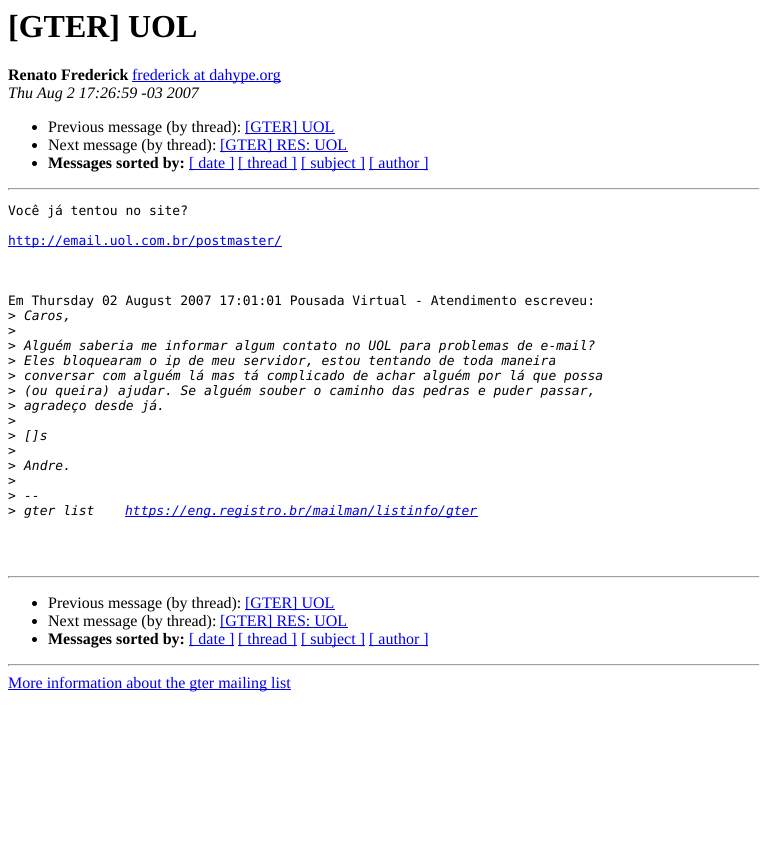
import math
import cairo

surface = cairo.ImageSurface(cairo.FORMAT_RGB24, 768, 859)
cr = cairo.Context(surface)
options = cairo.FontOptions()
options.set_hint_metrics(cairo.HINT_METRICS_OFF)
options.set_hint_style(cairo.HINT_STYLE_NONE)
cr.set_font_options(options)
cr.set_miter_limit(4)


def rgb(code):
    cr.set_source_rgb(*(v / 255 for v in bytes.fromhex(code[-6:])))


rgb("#ffffff")
cr.paint()
rgb("#0000ee")
cr.rectangle(132, 81, 149, 1)
cr.fill()
rgb("#000000")
cr.arc(34.5, 127.5, 2.5, 0, 2 * math.pi)
cr.fill()
rgb("#0000ee")
cr.rectangle(245, 133, 90, 1)
cr.fill()
rgb("#000000")
cr.arc(34.5, 145.5, 2.5, 0, 2 * math.pi)
cr.fill()
rgb("#0000ee")
cr.rectangle(220, 151, 128, 1)
cr.fill()
rgb("#000000")
cr.arc(34.5, 163.5, 2.5, 0, 2 * math.pi)
cr.fill()
for x, y, w, h, color in [
    (189, 169, 45, 1, "#0000ee"),
    (238, 169, 59, 1, "#0000ee"),
    (301, 169, 64, 1, "#0000ee"),
    (369, 169, 59, 1, "#0000ee"),
    (8, 188, 752, 1, "#9f9f9f"),
    (759, 188, 1, 2, "#eeeeee"),
    (8, 189, 752, 1, "#eeeeee"),
    (8, 188, 1, 2, "#9f9f9f"),
    (8, 246, 274, 1, "#0000ee"),
    (125, 516, 353, 1, "#0000ee"),
    (8, 576, 752, 1, "#9f9f9f"),
    (759, 576, 1, 2, "#eeeeee"),
    (8, 577, 752, 1, "#eeeeee"),
    (8, 576, 1, 2, "#9f9f9f"),
]:
    rgb(color)
    cr.rectangle(x, y, w, h)
    cr.fill()
rgb("#000000")
cr.arc(34.5, 603.5, 2.5, 0, 2 * math.pi)
cr.fill()
rgb("#0000ee")
cr.rectangle(245, 609, 90, 1)
cr.fill()
rgb("#000000")
cr.arc(34.5, 621.5, 2.5, 0, 2 * math.pi)
cr.fill()
rgb("#0000ee")
cr.rectangle(220, 627, 128, 1)
cr.fill()
rgb("#000000")
cr.arc(34.5, 639.5, 2.5, 0, 2 * math.pi)
cr.fill()
for x, y, w, h, color in [
    (189, 645, 45, 1, "#0000ee"),
    (238, 645, 59, 1, "#0000ee"),
    (301, 645, 64, 1, "#0000ee"),
    (369, 645, 59, 1, "#0000ee"),
    (8, 664, 752, 1, "#9f9f9f"),
    (759, 664, 1, 2, "#eeeeee"),
    (8, 665, 752, 1, "#eeeeee"),
    (8, 664, 1, 2, "#9f9f9f"),
    (8, 689, 283, 1, "#0000ee"),
]:
    rgb(color)
    cr.rectangle(x, y, w, h)
    cr.fill()
cr.select_font_face("Liberation Serif", cairo.FONT_SLANT_NORMAL, cairo.FONT_WEIGHT_BOLD)
cr.set_font_size(32)
rgb("#000000")
cr.move_to(8, 37)
cr.show_text("[GTER] UOL")
cr.set_font_size(16)
cr.move_to(8, 80)
cr.show_text("Renato Frederick")
cr.select_font_face("Liberation Serif")
rgb("#0000ee")
cr.move_to(132, 80)
cr.show_text("frederick at dahype.org")
cr.select_font_face("Liberation Serif", cairo.FONT_SLANT_ITALIC)
rgb("#000000")
cr.move_to(8, 98)
cr.show_text("Thu Aug 2 17:26:59 -03 2007")
cr.select_font_face("Liberation Serif")
cr.move_to(48, 132)
cr.show_text("Previous message (by thread):")
rgb("#0000ee")
cr.move_to(245, 132)
cr.show_text("[GTER] UOL")
rgb("#000000")
cr.move_to(48, 150)
cr.show_text("Next message (by thread):")
rgb("#0000ee")
cr.move_to(220, 150)
cr.show_text("[GTER] RES: UOL")
cr.select_font_face("Liberation Serif", cairo.FONT_SLANT_NORMAL, cairo.FONT_WEIGHT_BOLD)
rgb("#000000")
cr.move_to(48, 168)
cr.show_text("Messages sorted by:")
cr.select_font_face("Liberation Serif")
rgb("#0000ee")
for x, y, s in [
    (189, 168, "[ date ]"),
    (238, 168, "[ thread ]"),
    (301, 168, "[ subject ]"),
    (369, 168, "[ author ]"),
]:
    cr.move_to(x, y)
    cr.show_text(s)
cr.select_font_face("DejaVu Sans Mono")
cr.set_font_size(13)
rgb("#000000")
cr.move_to(8, 215)
cr.show_text("Você já tentou no site?")
rgb("#0000ee")
cr.move_to(8, 245)
cr.show_text("http://email.uol.com.br/postmaster/")
rgb("#000000")
cr.move_to(8, 305)
cr.show_text("Em Thursday 02 August 2007 17:01:01 Pousada Virtual - Atendimento escreveu:")
cr.move_to(8, 320)
cr.show_text(">")
cr.select_font_face("DejaVu Sans Mono", cairo.FONT_SLANT_ITALIC)
cr.move_to(24, 320)
cr.show_text("Caros,")
cr.select_font_face("DejaVu Sans Mono")
cr.move_to(8, 335)
cr.show_text(">")
cr.move_to(8, 350)
cr.show_text(">")
cr.select_font_face("DejaVu Sans Mono", cairo.FONT_SLANT_ITALIC)
cr.move_to(24, 350)
cr.show_text("Alguém saberia me informar algum contato no UOL para problemas de e-mail?")
cr.select_font_face("DejaVu Sans Mono")
cr.move_to(8, 365)
cr.show_text(">")
cr.select_font_face("DejaVu Sans Mono", cairo.FONT_SLANT_ITALIC)
cr.move_to(24, 365)
cr.show_text("Eles bloquearam o ip de meu servidor, estou tentando de toda maneira")
cr.select_font_face("DejaVu Sans Mono")
cr.move_to(8, 380)
cr.show_text(">")
cr.select_font_face("DejaVu Sans Mono", cairo.FONT_SLANT_ITALIC)
cr.move_to(24, 380)
cr.show_text("conversar com alguém lá mas tá complicado de achar alguém por lá que possa")
cr.select_font_face("DejaVu Sans Mono")
cr.move_to(8, 395)
cr.show_text(">")
cr.select_font_face("DejaVu Sans Mono", cairo.FONT_SLANT_ITALIC)
cr.move_to(24, 395)
cr.show_text("(ou queira) ajudar. Se alguém souber o caminho das pedras e puder passar,")
cr.select_font_face("DejaVu Sans Mono")
cr.move_to(8, 410)
cr.show_text(">")
cr.select_font_face("DejaVu Sans Mono", cairo.FONT_SLANT_ITALIC)
cr.move_to(24, 410)
cr.show_text("agradeço desde já.")
cr.select_font_face("DejaVu Sans Mono")
cr.move_to(8, 425)
cr.show_text(">")
cr.move_to(8, 440)
cr.show_text(">")
cr.select_font_face("DejaVu Sans Mono", cairo.FONT_SLANT_ITALIC)
cr.move_to(24, 440)
cr.show_text("[]s")
cr.select_font_face("DejaVu Sans Mono")
cr.move_to(8, 455)
cr.show_text(">")
cr.move_to(8, 470)
cr.show_text(">")
cr.select_font_face("DejaVu Sans Mono", cairo.FONT_SLANT_ITALIC)
cr.move_to(24, 470)
cr.show_text("Andre.")
cr.select_font_face("DejaVu Sans Mono")
cr.move_to(8, 485)
cr.show_text(">")
cr.move_to(8, 500)
cr.show_text(">")
cr.select_font_face("DejaVu Sans Mono", cairo.FONT_SLANT_ITALIC)
cr.move_to(24, 500)
cr.show_text("--")
cr.select_font_face("DejaVu Sans Mono")
cr.move_to(8, 515)
cr.show_text(">")
cr.select_font_face("DejaVu Sans Mono", cairo.FONT_SLANT_ITALIC)
cr.move_to(24, 515)
cr.show_text("gter list")
rgb("#0000ee")
cr.move_to(125, 515)
cr.show_text("https://eng.registro.br/mailman/listinfo/gter")
cr.select_font_face("Liberation Serif")
cr.set_font_size(16)
rgb("#000000")
cr.move_to(48, 608)
cr.show_text("Previous message (by thread):")
rgb("#0000ee")
cr.move_to(245, 608)
cr.show_text("[GTER] UOL")
rgb("#000000")
cr.move_to(48, 626)
cr.show_text("Next message (by thread):")
rgb("#0000ee")
cr.move_to(220, 626)
cr.show_text("[GTER] RES: UOL")
cr.select_font_face("Liberation Serif", cairo.FONT_SLANT_NORMAL, cairo.FONT_WEIGHT_BOLD)
rgb("#000000")
cr.move_to(48, 644)
cr.show_text("Messages sorted by:")
cr.select_font_face("Liberation Serif")
rgb("#0000ee")
for x, y, s in [
    (189, 644, "[ date ]"),
    (238, 644, "[ thread ]"),
    (301, 644, "[ subject ]"),
    (369, 644, "[ author ]"),
    (8, 688, "More information about the gter mailing list"),
]:
    cr.move_to(x, y)
    cr.show_text(s)
surface.write_to_png("page.png")
